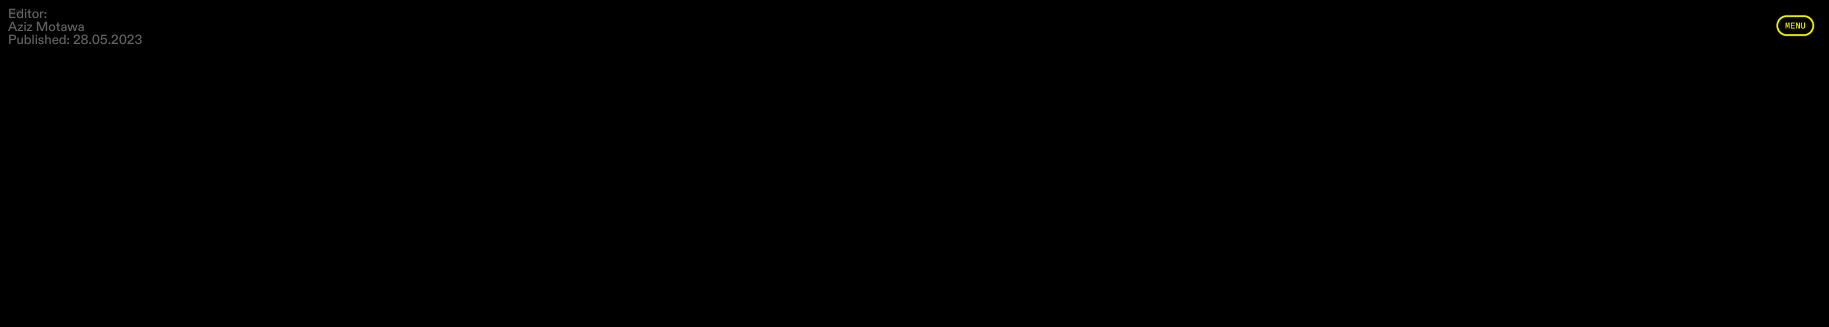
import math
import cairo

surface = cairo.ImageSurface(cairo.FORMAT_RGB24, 1829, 327)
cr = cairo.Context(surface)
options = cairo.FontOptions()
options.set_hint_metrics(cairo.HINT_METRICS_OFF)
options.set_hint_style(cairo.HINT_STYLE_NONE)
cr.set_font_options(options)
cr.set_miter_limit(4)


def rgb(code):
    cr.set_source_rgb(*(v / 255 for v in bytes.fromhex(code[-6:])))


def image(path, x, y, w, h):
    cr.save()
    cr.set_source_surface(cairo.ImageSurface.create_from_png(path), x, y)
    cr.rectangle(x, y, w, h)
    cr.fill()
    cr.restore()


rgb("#000000")
cr.paint()
image("img/1.png", 1776, 14, 39, 23)
cr.select_font_face("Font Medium")
cr.set_font_size(13.25)
rgb("#636363")
cr.move_to(8, 31)
cr.show_text("Aziz Motawa")
cr.move_to(8, 44)
cr.show_text("Published: 28.05.2023")
cr.select_font_face("Font", cairo.FONT_SLANT_ITALIC)
cr.set_font_size(7)
rgb("#363636")
cr.move_to(9, 15)
cr.show_text("(05)")
cr.select_font_face("Font Medium")
cr.set_font_size(13.25)
rgb("#636363")
cr.move_to(8, 18)
cr.show_text("Editor:")
surface.write_to_png("page.png")
